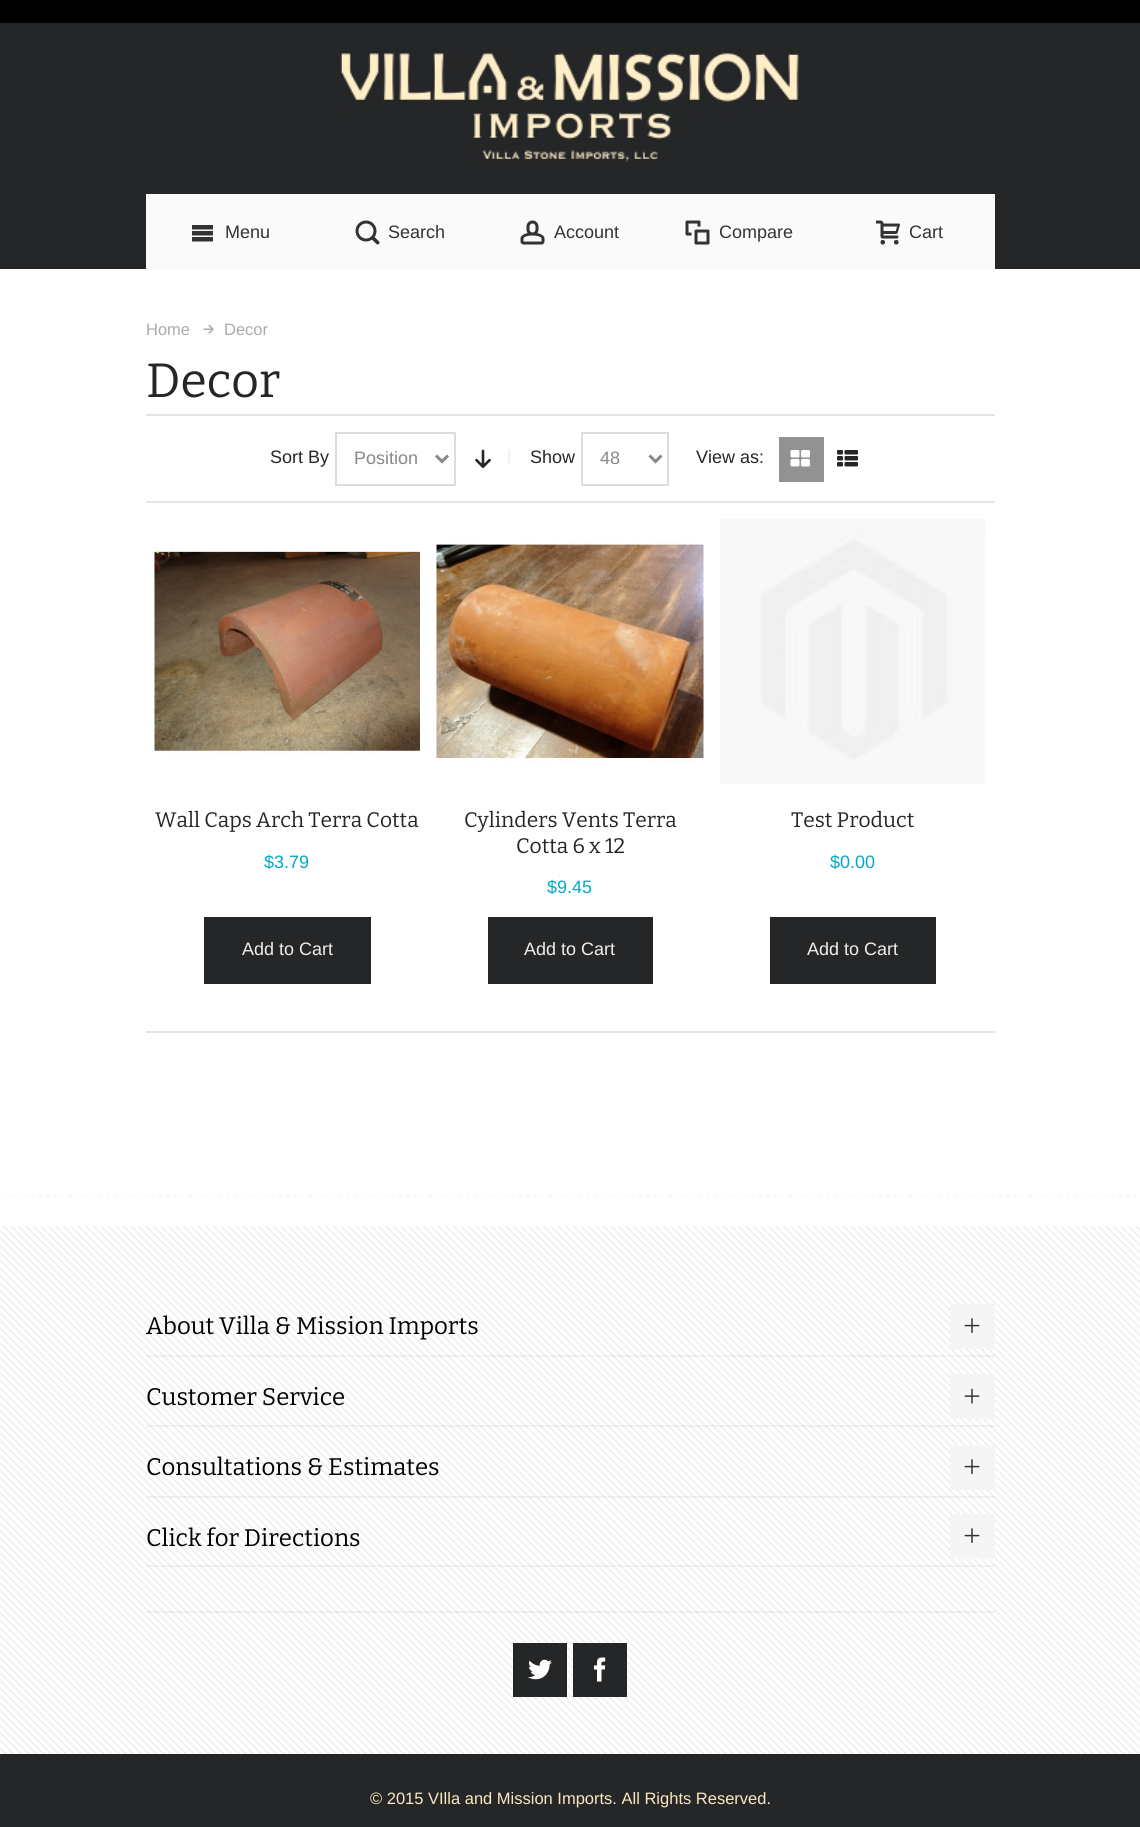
import math
import cairo

surface = cairo.ImageSurface(cairo.FORMAT_RGB24, 1140, 1827)
cr = cairo.Context(surface)
options = cairo.FontOptions()
options.set_hint_metrics(cairo.HINT_METRICS_OFF)
options.set_hint_style(cairo.HINT_STYLE_NONE)
cr.set_font_options(options)
cr.set_miter_limit(4)


def rgb(code):
    cr.set_source_rgb(*(v / 255 for v in bytes.fromhex(code[-6:])))


def image(path, x, y, w, h):
    cr.save()
    cr.set_source_surface(cairo.ImageSurface.create_from_png(path), x, y)
    cr.rectangle(x, y, w, h)
    cr.fill()
    cr.restore()


rgb("#ffffff")
cr.paint()
rgb("#252628")
cr.rectangle(0, 23, 1140, 246)
cr.fill()
rgb("#000000")
cr.rectangle(0, 0, 1140, 23)
cr.fill()
image("img/1.png", 340, 52, 460, 110)
rgb("#fafafa")
cr.rectangle(146, 194, 849, 75)
cr.fill()
image("img/2.png", 192, 225, 21, 17)
image("img/3.png", 355, 220, 25, 25)
image("img/4.png", 520, 220, 25, 25)
image("img/5.png", 685, 220, 25, 25)
image("img/6.png", 876, 220, 24, 25)
image("img/7.png", 203, 324, 11, 10)
rgb("#e5e5e5")
cr.rectangle(146, 414, 849, 2)
cr.fill()
cr.rectangle(146, 501, 849, 2)
cr.fill()
image("img/8.png", 508, 449, 2, 16)
cr.rectangle(336, 433, 119, 52)
rgb("#dddddd")
cr.stroke()
cr.new_path()
cr.move_to(436, 455.5)
cr.line_to(442, 461.5)
cr.line_to(448, 455.5)
rgb("#888888")
cr.set_line_width(3)
cr.stroke()
image("img/9.png", 475, 449, 16, 19)
cr.rectangle(582, 433, 86, 52)
rgb("#dddddd")
cr.set_line_width(2)
cr.stroke()
cr.new_path()
cr.move_to(649.5, 455.5)
cr.line_to(655.5, 461.5)
cr.line_to(661.5, 455.5)
rgb("#888888")
cr.set_line_width(3)
cr.stroke()
rgb("#929293")
cr.rectangle(779, 437, 45, 45)
cr.fill()
image("img/10.png", 790, 450, 20, 17)
image("img/11.png", 837, 450, 21, 17)
image("img/12.png", 154, 547, 266, 209)
rgb("#252628")
cr.rectangle(204, 917, 167, 67)
cr.fill()
image("img/13.png", 436, 540, 268, 223)
cr.rectangle(488, 917, 165, 67)
cr.fill()
image("img/14.png", 720, 518, 266, 266)
cr.rectangle(770, 917, 166, 67)
cr.fill()
rgb("#e5e5e5")
cr.rectangle(146, 1031, 849, 2)
cr.fill()
image("img/15.png", 0, 1195, 1140, 559)
rgb("#ffffff")
cr.rectangle(0, 1196, 1140, 30)
cr.fill()
cr.set_source_rgba(0, 0, 0, 0.05)
cr.rectangle(146, 1355, 849, 2)
cr.fill()
rgb("#f5f5f5")
cr.rectangle(950, 1304, 45, 45)
cr.fill()
image("img/16.png", 964, 1318, 16, 15)
cr.set_source_rgba(0, 0, 0, 0.05)
cr.rectangle(146, 1425, 849, 2)
cr.fill()
rgb("#f5f5f5")
cr.rectangle(950, 1374, 45, 45)
cr.fill()
image("img/17.png", 964, 1388, 16, 16)
cr.set_source_rgba(0, 0, 0, 0.05)
cr.rectangle(146, 1496, 849, 2)
cr.fill()
rgb("#f5f5f5")
cr.rectangle(950, 1445, 45, 45)
cr.fill()
image("img/16.png", 964, 1459, 16, 15)
cr.set_source_rgba(0, 0, 0, 0.05)
cr.rectangle(146, 1565, 849, 2)
cr.fill()
rgb("#f5f5f5")
cr.rectangle(950, 1514, 45, 45)
cr.fill()
image("img/16.png", 964, 1528, 16, 15)
cr.set_source_rgba(0, 0, 0, 0.05)
cr.rectangle(146, 1611, 849, 2)
cr.fill()
rgb("#252628")
cr.rectangle(513, 1643, 54, 54)
cr.fill()
image("img/18.png", 528, 1659, 24, 21)
cr.rectangle(573, 1643, 54, 54)
cr.fill()
image("img/19.png", 594, 1657, 12, 25)
cr.rectangle(0, 1754, 1140, 73)
cr.fill()
cr.select_font_face("Liberation Sans")
cr.set_font_size(18)
rgb("#333333")
for x, y, s in [
    (225, 238, "Menu"),
    (388, 238, "Search"),
    (554, 238, "Account"),
    (719, 238, "Compare"),
    (909, 238, "Cart"),
]:
    cr.move_to(x, y)
    cr.show_text(s)
cr.set_font_size(16.5)
rgb("#aaaaaa")
cr.move_to(146, 335)
cr.show_text("Home")
cr.move_to(224, 335)
cr.show_text("Decor")
cr.select_font_face("Bitter Thin")
cr.set_font_size(48)
rgb("#252628")
cr.move_to(146, 397)
cr.show_text("Decor")
cr.select_font_face("Liberation Sans")
cr.set_font_size(18)
cr.move_to(270, 463)
cr.show_text("Sort By")
rgb("#888888")
cr.move_to(354, 464)
cr.show_text("Position")
rgb("#252628")
cr.move_to(530, 463)
cr.show_text("Show")
rgb("#888888")
cr.move_to(600, 464)
cr.show_text("48")
rgb("#252628")
cr.move_to(696, 463)
cr.show_text("View as:")
cr.select_font_face("Bitter Thin")
cr.set_font_size(21)
cr.move_to(155, 827)
cr.show_text("Wall Caps Arch Terra Cotta")
cr.select_font_face("Liberation Sans")
cr.set_font_size(18)
rgb("#00a9c7")
cr.move_to(264, 868)
cr.show_text("$3.79")
rgb("#eeeeee")
cr.move_to(242, 955)
cr.show_text("Add to Cart")
cr.select_font_face("Bitter Thin")
cr.set_font_size(21)
rgb("#252628")
cr.move_to(464, 827)
cr.show_text("Cylinders Vents Terra")
cr.move_to(516, 853)
cr.show_text("Cotta 6 x 12")
cr.select_font_face("Liberation Sans")
cr.set_font_size(18)
rgb("#00a9c7")
cr.move_to(547, 893)
cr.show_text("$9.45")
rgb("#eeeeee")
cr.move_to(524, 955)
cr.show_text("Add to Cart")
cr.select_font_face("Bitter Thin")
cr.set_font_size(21)
rgb("#252628")
cr.move_to(791, 827)
cr.show_text("Test Product")
cr.select_font_face("Liberation Sans")
cr.set_font_size(18)
rgb("#00a9c7")
cr.move_to(830, 868)
cr.show_text("$0.00")
rgb("#eeeeee")
cr.move_to(807, 955)
cr.show_text("Add to Cart")
cr.select_font_face("Bitter Thin")
cr.set_font_size(24)
rgb("#000000")
for x, y, s in [
    (146, 1334, "About Villa & Mission Imports"),
    (146, 1405, "Customer Service"),
    (146, 1475, "Consultations & Estimates"),
    (146, 1546, "Click for Directions"),
]:
    cr.move_to(x, y)
    cr.show_text(s)
cr.select_font_face("Liberation Sans")
cr.set_font_size(16.5)
rgb("#fbe8c1")
cr.move_to(370, 1804)
cr.show_text("© 2015 VIlla and Mission Imports. All Rights Reserved.")
surface.write_to_png("page.png")
